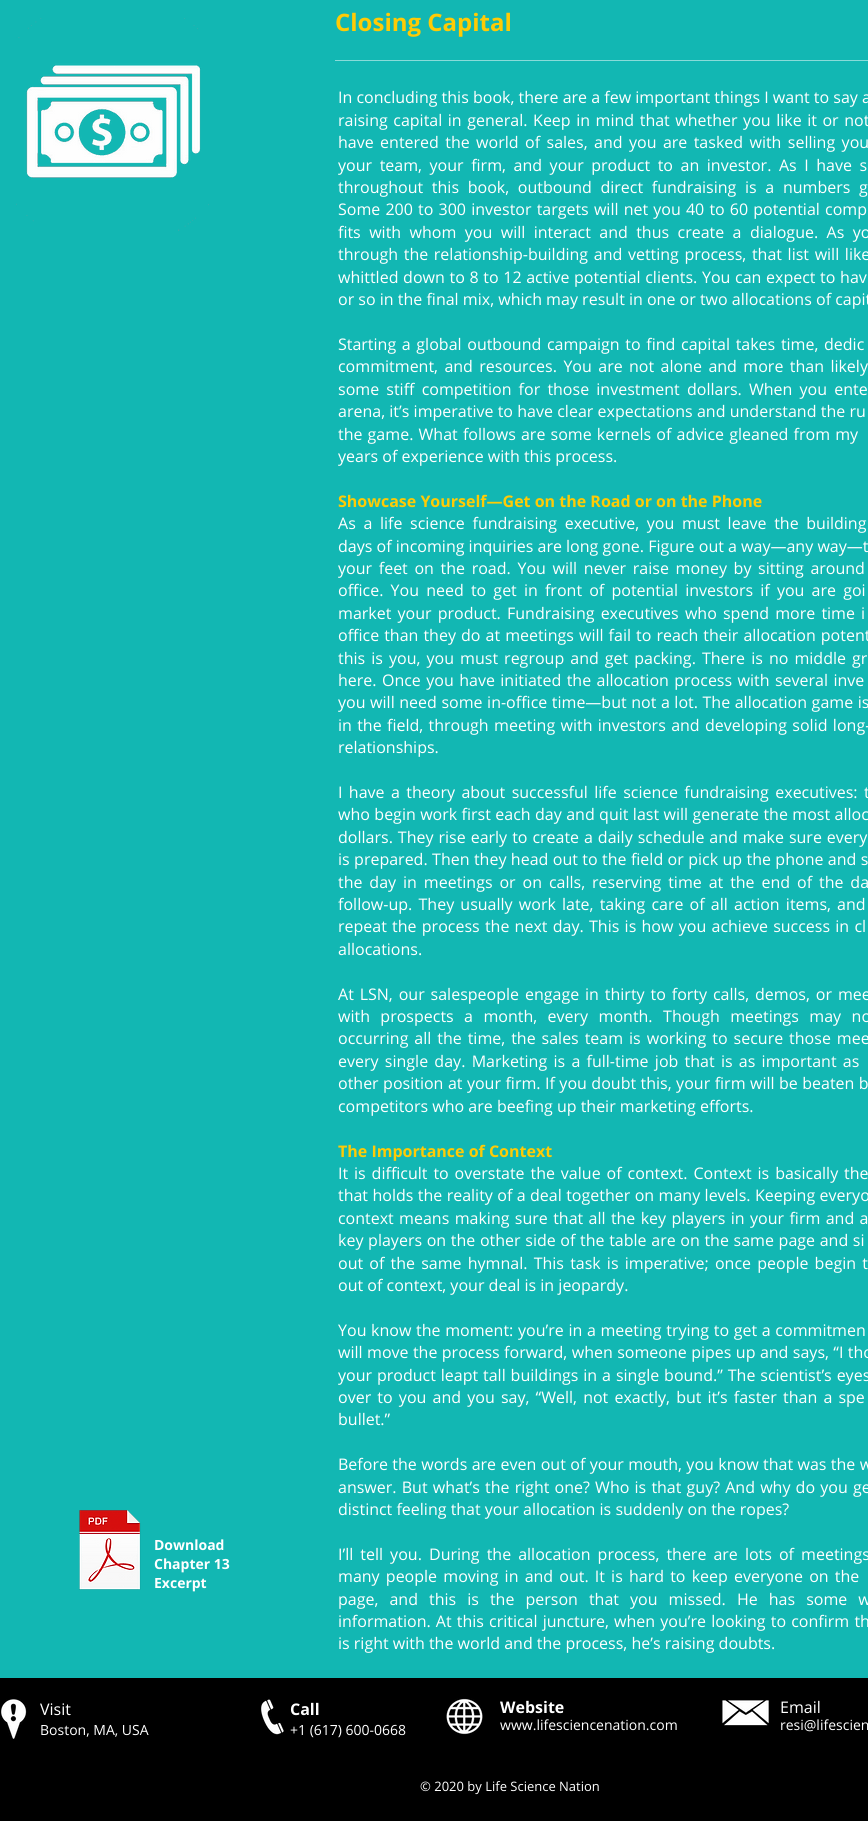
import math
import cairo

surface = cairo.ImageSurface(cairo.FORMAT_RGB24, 868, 1821)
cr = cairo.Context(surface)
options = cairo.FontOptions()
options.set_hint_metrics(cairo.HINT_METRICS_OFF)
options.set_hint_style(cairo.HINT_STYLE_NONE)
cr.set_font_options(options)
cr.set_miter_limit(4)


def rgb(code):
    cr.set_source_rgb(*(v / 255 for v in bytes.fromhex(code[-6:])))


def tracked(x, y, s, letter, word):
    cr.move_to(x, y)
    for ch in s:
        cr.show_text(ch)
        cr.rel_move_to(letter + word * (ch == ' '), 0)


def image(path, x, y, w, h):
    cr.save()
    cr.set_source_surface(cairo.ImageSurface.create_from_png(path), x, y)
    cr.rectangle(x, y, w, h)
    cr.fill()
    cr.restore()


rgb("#12b7b3")
cr.paint()
image("img/1.png", 16, 18, 193, 213)
rgb("#89dbd9")
cr.rectangle(335, 60, 533, 1)
cr.fill()
image("img/2.png", 79, 1510, 62, 80)
rgb("#000000")
cr.rectangle(0, 1678, 868, 143)
cr.fill()
image("img/3.png", 1, 1699, 26, 40)
image("img/4.png", 261, 1699, 23, 36)
image("img/5.png", 446, 1698, 37, 37)
image("img/6.png", 722, 1700, 47, 26)
cr.select_font_face("Open Sans", cairo.FONT_SLANT_NORMAL, cairo.FONT_WEIGHT_BOLD)
cr.set_font_size(24)
rgb("#ffcb05")
cr.move_to(335, 31)
cr.show_text("Closing Capital")
cr.set_font_size(14)
rgb("#ffffff")
for x, y, s in [
    (154, 1550, "Download"),
    (154, 1569, "Chapter 13"),
    (154, 1588, "Excerpt"),
]:
    cr.move_to(x, y)
    cr.show_text(s)
cr.select_font_face("Open Sans")
cr.set_font_size(16)
cr.move_to(338, 103)
cr.show_text("In concluding this book, there are a few important things I want to say a")
tracked(338, 126, "raising capital in general. Keep in mind that whether you like it or not", 0, 1.4)
tracked(338, 148, "have entered the world of sales, and you are tasked with selling you", 0, 2.25)
tracked(338, 171, "your team, your firm, and your product to an investor. As I have s", 0, 3.4)
tracked(338, 193, "throughout this book, outbound direct fundraising is a numbers g", 0, 4.5)
tracked(338, 215, "Some 200 to 300 investor targets will net you 40 to 60 potential comp", 0, 1)
tracked(338, 238, "fits with whom you will interact and thus create a dialogue. As yo", 0, 4.25)
tracked(338, 260, "through the relationship-building and vetting process, that list will like", 0, 1.5)
tracked(338, 283, "whittled down to 8 to 12 active potential clients. You can expect to hav", 0, 0.5)
cr.move_to(338, 305)
cr.show_text("or so in the final mix, which may result in one or two allocations of capit")
tracked(338, 350, "Starting a global outbound campaign to find capital takes time, dedic", 0, 1.5)
tracked(338, 372, "commitment, and resources. You are not alone and more than likely", 0, 2.25)
tracked(338, 395, "some stiff competition for those investment dollars. When you ente", 0, 3)
tracked(338, 417, "arena, it’s imperative to have clear expectations and understand the ru", 0, 0.1)
tracked(338, 440, "the game. What follows are some kernels of advice gleaned from my", 0, 1)
cr.move_to(338, 462)
cr.show_text("years of experience with this process.")
cr.select_font_face("Open Sans", cairo.FONT_SLANT_NORMAL, cairo.FONT_WEIGHT_BOLD)
rgb("#ffcb05")
cr.move_to(338, 507)
cr.show_text("Showcase Yourself—Get on the Road or on the Phone")
cr.select_font_face("Open Sans")
rgb("#ffffff")
tracked(338, 529, "As a life science fundraising executive, you must leave the building", 0, 3.5)
cr.move_to(338, 552)
cr.show_text("days of incoming inquiries are long gone. Figure out a way—any way—t")
tracked(338, 574, "your feet on the road. You will never raise money by sitting around", 0, 2.5)
tracked(338, 596, "office. You need to get in front of potential investors if you are goi", 0, 3)
tracked(338, 619, "market your product. Fundraising executives who spend more time i", 0, 2)
tracked(338, 641, "office than they do at meetings will fail to reach their allocation potent", 0, 0.9)
tracked(338, 664, "this is you, you must regroup and get packing. There is no middle gr", 0, 1.9)
tracked(338, 686, "here. Once you have initiated the allocation process with several inve", 0, 1.25)
tracked(338, 708, "you will need some in-office time—but not a lot. The allocation game is", 0, 0.4)
tracked(338, 731, "in the field, through meeting with investors and developing solid long-", 0, 1.2)
cr.move_to(338, 753)
cr.show_text("relationships.")
tracked(338, 798, "I have a theory about successful life science fundraising executives: t", 0, 2.25)
tracked(338, 820, "who begin work first each day and quit last will generate the most alloc", 0, 0.25)
tracked(338, 843, "dollars. They rise early to create a daily schedule and make sure every", 0, 0.8)
tracked(338, 865, "is prepared. Then they head out to the field or pick up the phone and s", 0, 0.25)
tracked(338, 888, "the day in meetings or on calls, reserving time at the end of the da", 0, 2.75)
tracked(338, 910, "follow-up. They usually work late, taking care of all action items, and", 0, 2)
tracked(338, 932, "repeat the process the next day. This is how you achieve success in cl", 0, 1.1)
cr.move_to(338, 955)
cr.show_text("allocations.")
tracked(338, 1000, "At LSN, our salespeople engage in thirty to forty calls, demos, or mee", 0, 1.75)
tracked(338, 1022, "with prospects a month, every month. Though meetings may no", 0, 6.25)
tracked(338, 1044, "occurring all the time, the sales team is working to secure those mee", 0, 1.8)
tracked(338, 1067, "every single day. Marketing is a full-time job that is as important as", 0, 2.1)
tracked(338, 1089, "other position at your firm. If you doubt this, your firm will be beaten b", 0, 0.3)
cr.move_to(338, 1112)
cr.show_text("competitors who are beefing up their marketing efforts.")
cr.select_font_face("Open Sans", cairo.FONT_SLANT_NORMAL, cairo.FONT_WEIGHT_BOLD)
rgb("#ffcb05")
cr.move_to(338, 1157)
cr.show_text("The Importance of Context")
cr.select_font_face("Open Sans")
rgb("#ffffff")
tracked(338, 1179, "It is difficult to overstate the value of context. Context is basically the", 0, 1.75)
tracked(338, 1201, "that holds the reality of a deal together on many levels. Keeping everyo", 0, 0.25)
tracked(338, 1224, "context means making sure that all the key players in your firm and a", 0, 1.2)
tracked(338, 1246, "key players on the other side of the table are on the same page and si", 0, 0.5)
tracked(338, 1269, "out of the same hymnal. This task is imperative; once people begin t", 0, 2)
cr.move_to(338, 1291)
cr.show_text("out of context, your deal is in jeopardy.")
tracked(338, 1336, "You know the moment: you’re in a meeting trying to get a commitmen", 0, 0.5)
tracked(338, 1358, "will move the process forward, when someone pipes up and says, “I tho", 0, 0.25)
tracked(338, 1381, "your product leapt tall buildings in a single bound.” The scientist’s eyes", 0, 0.75)
tracked(338, 1403, "over to you and you say, “Well, not exactly, but it’s faster than a spe", 0, 2)
cr.move_to(338, 1425)
cr.show_text("bullet.”")
tracked(338, 1470, "Before the words are even out of your mouth, you know that was the w", 0, 0.25)
tracked(338, 1493, "answer. But what’s the right one? Who is that guy? And why do you ge", 0, 1)
cr.move_to(338, 1515)
cr.show_text("distinct feeling that your allocation is suddenly on the ropes?")
tracked(338, 1560, "I’ll tell you. During the allocation process, there are lots of meetings", 0, 2.9)
tracked(338, 1582, "many people moving in and out. It is hard to keep everyone on the", 0, 2)
tracked(338, 1605, "page, and this is the person that you missed. He has some w", 0, 6.9)
tracked(338, 1627, "information. At this critical juncture, when you’re looking to confirm th", 0, 1)
cr.move_to(338, 1649)
cr.show_text("is right with the world and the process, he’s raising doubts.")
cr.move_to(40, 1715)
cr.show_text("Visit")
cr.set_font_size(14)
cr.move_to(40, 1735)
cr.show_text("Boston, MA, USA")
cr.select_font_face("Open Sans", cairo.FONT_SLANT_NORMAL, cairo.FONT_WEIGHT_BOLD)
cr.set_font_size(16)
cr.move_to(290, 1715)
cr.show_text("Call")
cr.select_font_face("Open Sans")
cr.set_font_size(14)
cr.move_to(290, 1735)
cr.show_text("+1 (617) 600-0668")
cr.select_font_face("Open Sans", cairo.FONT_SLANT_NORMAL, cairo.FONT_WEIGHT_BOLD)
cr.set_font_size(16)
cr.move_to(500, 1713)
cr.show_text("Website")
cr.select_font_face("Open Sans")
cr.set_font_size(14)
cr.move_to(500, 1730)
cr.show_text("www.lifesciencenation.com")
cr.set_font_size(16)
cr.move_to(780, 1713)
cr.show_text("Email")
cr.set_font_size(14)
cr.move_to(780, 1730)
cr.show_text("resi@lifescien")
cr.set_font_size(13)
cr.move_to(420, 1791)
cr.show_text("© 2020 by Life Science Nation")
surface.write_to_png("page.png")
